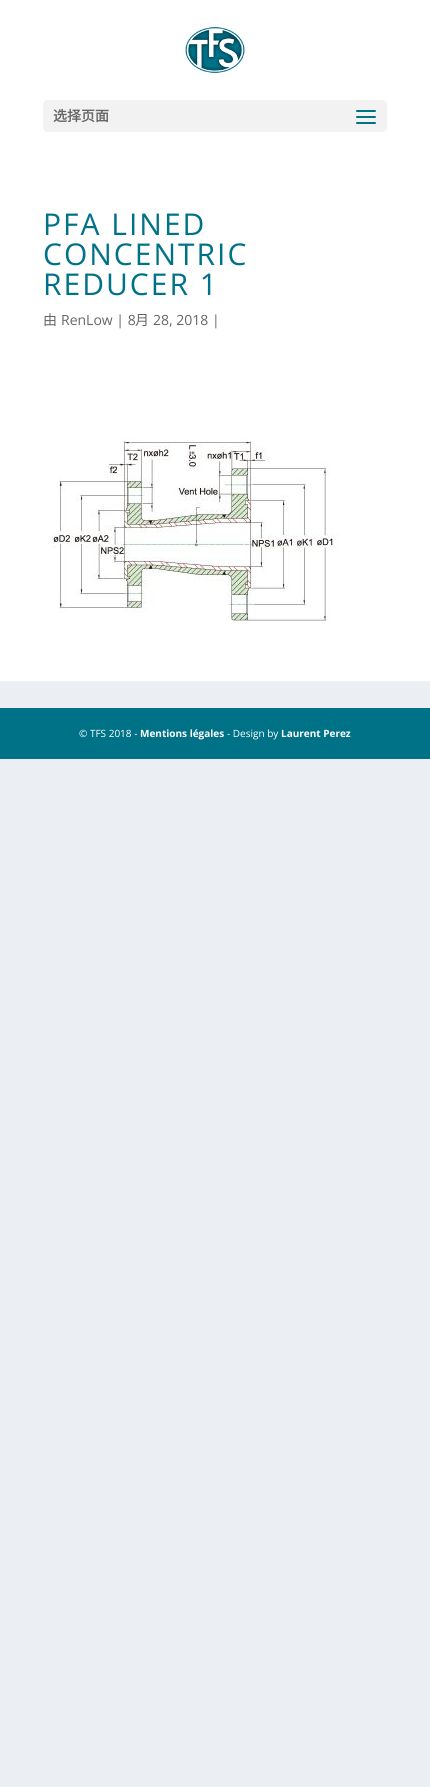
import math
import cairo

surface = cairo.ImageSurface(cairo.FORMAT_RGB24, 430, 1787)
cr = cairo.Context(surface)
options = cairo.FontOptions()
options.set_hint_metrics(cairo.HINT_METRICS_OFF)
options.set_hint_style(cairo.HINT_STYLE_NONE)
cr.set_font_options(options)
cr.set_miter_limit(4)


def rgb(code):
    cr.set_source_rgb(*(v / 255 for v in bytes.fromhex(code[-6:])))


def tracked(x, y, s, letter, word):
    cr.move_to(x, y)
    for ch in s:
        cr.show_text(ch)
        cr.rel_move_to(letter + word * (ch == ' '), 0)


def rrect(x, y, w, h, r):
    cr.new_sub_path()
    for i, (u, v) in enumerate([(x + w - r, y + h - r), (x + r, y + h - r), (x + r, y + r), (x + w - r, y + r)]):
        cr.arc(u, v, r, i * math.pi / 2, (i + 1) * math.pi / 2)
    cr.close_path()


def image(path, x, y, w, h):
    cr.save()
    cr.set_source_surface(cairo.ImageSurface.create_from_png(path), x, y)
    cr.rectangle(x, y, w, h)
    cr.fill()
    cr.restore()


rgb("#ebeff4")
cr.paint()
rgb("#ffffff")
cr.rectangle(0, 0, 430, 681)
cr.fill()
image("img/1.png", 185, 27, 60, 47)
rgb("#f2f2f2")
rrect(43, 100, 344, 32, 5)
cr.fill()
image("img/2.png", 356, 110, 20, 14)
image("img/3.png", 51, 437, 288, 184)
rgb("#007288")
cr.rectangle(0, 708, 430, 51)
cr.fill()
cr.select_font_face("Noto Sans CJK SC", cairo.FONT_SLANT_NORMAL, cairo.FONT_WEIGHT_BOLD)
cr.set_font_size(14)
rgb("#666666")
cr.move_to(53, 121)
cr.show_text("选择页面")
cr.select_font_face("Open Sans")
cr.set_font_size(30)
rgb("#007288")
for x, y, s in [
    (43, 235, "PFA LINED"),
    (43, 265, "CONCENTRIC"),
    (43, 295, "REDUCER 1"),
]:
    tracked(x, y, s, 2, 0)
cr.select_font_face("Noto Sans CJK SC")
cr.set_font_size(14)
rgb("#666666")
cr.move_to(43, 325)
cr.show_text("由")
cr.select_font_face("Open Sans")
cr.move_to(61, 325)
cr.show_text("RenLow | 8")
cr.select_font_face("Noto Sans CJK SC")
cr.move_to(135, 325)
cr.show_text("月")
cr.select_font_face("Open Sans")
cr.move_to(153, 325)
cr.show_text("28, 2018 |")
cr.set_font_size(10)
rgb("#ffffff")
cr.move_to(79, 737)
cr.show_text("© TFS 2018 -")
cr.select_font_face("Open Sans", cairo.FONT_SLANT_NORMAL, cairo.FONT_WEIGHT_BOLD)
cr.move_to(140, 737)
cr.show_text("Mentions légales")
cr.select_font_face("Open Sans")
cr.move_to(227, 737)
cr.show_text("- Design by")
cr.select_font_face("Open Sans", cairo.FONT_SLANT_NORMAL, cairo.FONT_WEIGHT_BOLD)
cr.move_to(281, 737)
cr.show_text("Laurent Perez")
surface.write_to_png("page.png")
